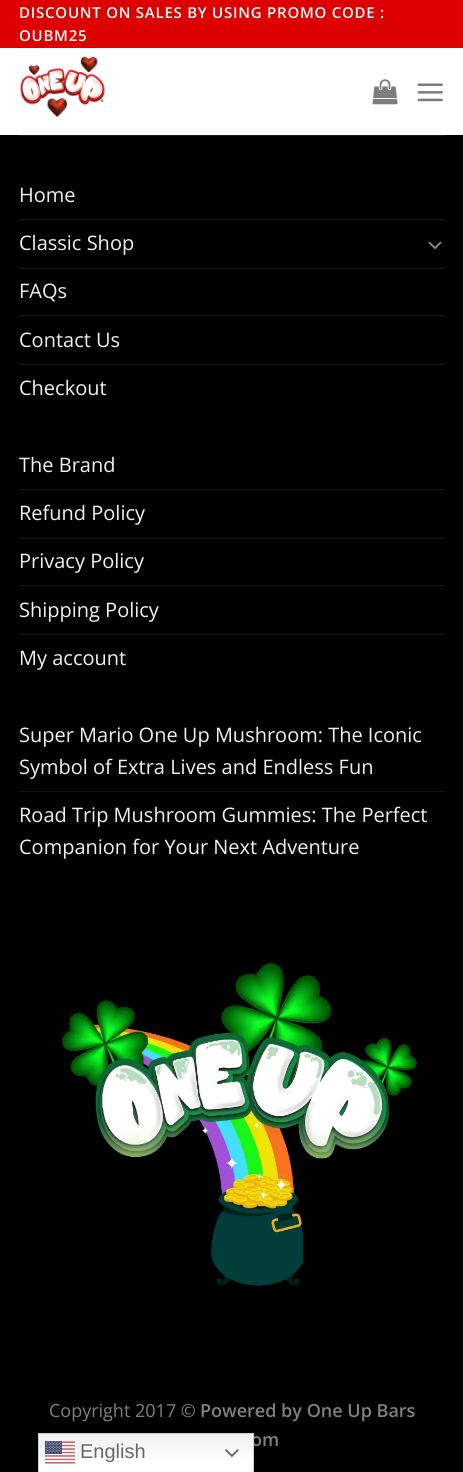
import math
import cairo

surface = cairo.ImageSurface(cairo.FORMAT_RGB24, 463, 1472)
cr = cairo.Context(surface)
options = cairo.FontOptions()
options.set_hint_metrics(cairo.HINT_METRICS_OFF)
options.set_hint_style(cairo.HINT_STYLE_NONE)
cr.set_font_options(options)
cr.set_miter_limit(4)


def rgb(code):
    cr.set_source_rgb(*(v / 255 for v in bytes.fromhex(code[-6:])))


def tracked(x, y, s, letter, word):
    cr.move_to(x, y)
    for ch in s:
        cr.show_text(ch)
        cr.rel_move_to(letter + word * (ch == ' '), 0)


def image(path, x, y, w, h):
    cr.save()
    cr.set_source_surface(cairo.ImageSurface.create_from_png(path), x, y)
    cr.rectangle(x, y, w, h)
    cr.fill()
    cr.restore()


rgb("#000000")
cr.paint()
rgb("#dd0000")
cr.rectangle(0, 0, 463, 48)
cr.fill()
rgb("#ffffff")
cr.rectangle(0, 48, 463, 87)
cr.fill()
image("img/1.png", 20, 56, 85, 61)
image("img/2.png", 372, 79, 26, 26)
image("img/3.png", 417, 83, 26, 19)
rgb("#1a1a1a")
cr.rectangle(19, 135, 426, 1)
cr.fill()
rgb("#141414")
cr.rectangle(19, 219, 426, 1)
cr.fill()
image("img/4.png", 428, 241, 14, 9)
for x, y, w, h, color in [
    (19, 268, 426, 1, "#141414"),
    (19, 315, 426, 1, "#141414"),
    (19, 364, 426, 1, "#141414"),
    (19, 489, 426, 1, "#141414"),
    (19, 538, 426, 1, "#141414"),
    (19, 585, 426, 1, "#141414"),
    (19, 634, 426, 1, "#141414"),
    (19, 791, 426, 1, "#141414"),
]:
    rgb(color)
    cr.rectangle(x, y, w, h)
    cr.fill()
image("img/5.png", 62, 963, 355, 323)
cr.select_font_face("Open Sans SemiBold")
cr.set_font_size(15)
rgb("#ffffff")
tracked(19, 18, "DISCOUNT ON SALES BY USING PROMO CODE :", 0.75, 0)
tracked(19, 41, "OUBM25", 0.75, 0)
cr.select_font_face("Open Sans")
cr.set_font_size(20)
rgb("#f1f1f1")
for x, y, s in [
    (19, 202, "Home"),
    (19, 250, "Classic Shop"),
    (19, 298, "FAQs"),
    (19, 347, "Contact Us"),
    (19, 395, "Checkout"),
    (19, 472, "The Brand"),
    (19, 520, "Refund Policy"),
    (19, 568, "Privacy Policy"),
    (19, 617, "Shipping Policy"),
    (19, 665, "My account"),
    (19, 742, "Super Mario One Up Mushroom: The Iconic"),
    (19, 774, "Symbol of Extra Lives and Endless Fun"),
    (19, 822, "Road Trip Mushroom Gummies: The Perfect"),
    (19, 854, "Companion for Your Next Adventure"),
]:
    cr.move_to(x, y)
    cr.show_text(s)
cr.set_font_size(18)
rgb("#808080")
cr.move_to(49, 1417)
cr.show_text("Copyright 2017 ©")
cr.select_font_face("Open Sans SemiBold")
cr.move_to(200, 1417)
cr.show_text("Powered by One Up Bars")
cr.move_to(251, 1446)
cr.show_text("om")
gradient = cairo.LinearGradient(146, 1433, 146, 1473)
gradient.add_color_stop_rgba(0, 0.937, 0.937, 0.937, 1)
gradient.add_color_stop_rgba(0.7, 1, 1, 1, 1)
cr.set_source(gradient)
cr.rectangle(39, 1434, 214, 38)
cr.fill()
cr.rectangle(38.5, 1433.5, 215, 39)
rgb("#cccccc")
cr.set_line_width(1)
cr.stroke()
image("img/6.png", 45, 1441, 30, 23)
cr.select_font_face("Liberation Sans")
cr.set_font_size(20)
rgb("#666666")
cr.move_to(80, 1458)
cr.show_text("English")
image("img/7.png", 225, 1449, 14, 9)
surface.write_to_png("page.png")
